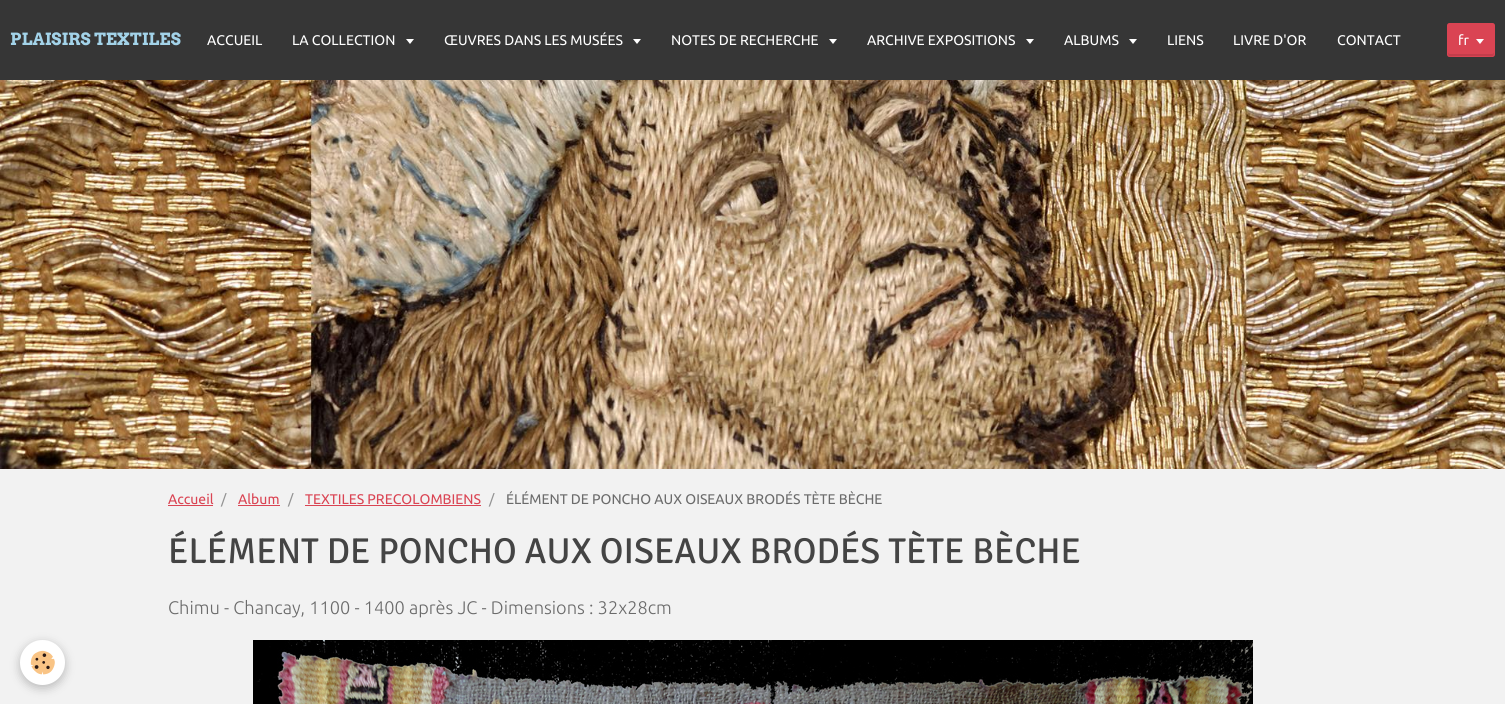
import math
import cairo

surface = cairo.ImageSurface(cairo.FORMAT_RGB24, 1505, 704)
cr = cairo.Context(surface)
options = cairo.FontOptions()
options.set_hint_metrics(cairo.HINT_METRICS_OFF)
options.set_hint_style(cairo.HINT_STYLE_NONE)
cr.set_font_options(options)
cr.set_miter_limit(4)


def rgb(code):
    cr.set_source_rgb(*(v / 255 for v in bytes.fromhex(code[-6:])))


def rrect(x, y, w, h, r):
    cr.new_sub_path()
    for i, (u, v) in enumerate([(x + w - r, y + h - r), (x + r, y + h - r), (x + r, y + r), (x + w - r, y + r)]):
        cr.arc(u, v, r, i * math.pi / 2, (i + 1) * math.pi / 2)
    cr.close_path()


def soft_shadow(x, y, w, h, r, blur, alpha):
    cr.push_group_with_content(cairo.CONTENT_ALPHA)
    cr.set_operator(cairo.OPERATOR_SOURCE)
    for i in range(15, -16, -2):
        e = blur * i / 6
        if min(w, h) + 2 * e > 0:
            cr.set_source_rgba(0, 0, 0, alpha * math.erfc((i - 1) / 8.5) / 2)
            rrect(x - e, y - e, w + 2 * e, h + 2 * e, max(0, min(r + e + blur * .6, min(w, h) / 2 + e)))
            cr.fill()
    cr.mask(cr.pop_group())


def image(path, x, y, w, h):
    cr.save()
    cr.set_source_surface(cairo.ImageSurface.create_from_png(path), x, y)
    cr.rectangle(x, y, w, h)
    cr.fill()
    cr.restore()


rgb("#f2f2f2")
cr.paint()
rgb("#363636")
cr.rectangle(0, 0, 1505, 80)
cr.fill()
rgb("#ffffff")
cr.new_path()
cr.move_to(406, 39)
cr.line_to(414, 39)
cr.line_to(410, 44)
cr.close_path()
cr.fill()
cr.new_path()
cr.move_to(633, 39)
cr.line_to(641, 39)
cr.line_to(637, 44)
cr.close_path()
cr.fill()
cr.new_path()
cr.move_to(829, 39)
cr.line_to(837, 39)
cr.line_to(833, 44)
cr.close_path()
cr.fill()
cr.new_path()
cr.move_to(1026, 39)
cr.line_to(1034, 39)
cr.line_to(1030, 44)
cr.close_path()
cr.fill()
cr.new_path()
cr.move_to(1129, 39)
cr.line_to(1137, 39)
cr.line_to(1133, 44)
cr.close_path()
cr.fill()
rgb("#da4453")
rrect(1447, 23, 48, 34, 2.5)
cr.fill()
rgb("#c43d4b")
cr.new_path()
cr.move_to(1448, 52)
cr.curve_to(1448, 58, 1450, 56, 1457, 56)
cr.line_to(1485, 56)
cr.curve_to(1492, 56, 1494, 58, 1494, 52)
cr.curve_to(1494, 53, 1493, 54, 1492, 54)
cr.line_to(1450, 54)
cr.curve_to(1449, 54, 1448, 53, 1448, 52)
cr.close_path()
cr.fill()
rgb("#ffffff")
cr.new_path()
cr.move_to(1476, 39)
cr.line_to(1484, 39)
cr.line_to(1480, 44)
cr.close_path()
cr.fill()
image("img/1.png", 0, 80, 1505, 389)
for x, y, w, h, color in [
    (168, 505, 45, 1, "#da4453"),
    (238, 505, 42, 1, "#da4453"),
    (305, 505, 176, 1, "#da4453"),
]:
    rgb(color)
    cr.rectangle(x, y, w, h)
    cr.fill()
image("img/2.png", 253, 640, 1000, 64)
rgb("#000000")
soft_shadow(20, 643, 45, 45, 22.5, 5, 0.24)
rgb("#ffffff")
cr.arc(42.5, 662.5, 22.5, 0, 2 * math.pi)
cr.fill()
image("img/3.png", 30, 650, 25, 25)
cr.select_font_face("Arvo", cairo.FONT_SLANT_NORMAL, cairo.FONT_WEIGHT_BOLD)
cr.set_font_size(16.75)
rgb("#a3d3e9")
cr.move_to(10, 45)
cr.show_text("PLAISIRS TEXTILES")
cr.select_font_face("Ubuntu")
cr.set_font_size(14)
rgb("#ffffff")
for x, y, s in [
    (207, 45, "ACCUEIL"),
    (292, 45, "LA COLLECTION"),
    (444, 45, "ŒUVRES DANS LES MUSÉES"),
    (671, 45, "NOTES DE RECHERCHE"),
    (867, 45, "ARCHIVE EXPOSITIONS"),
    (1064, 45, "ALBUMS"),
    (1167, 45, "LIENS"),
    (1233, 45, "LIVRE D'OR"),
    (1337, 45, "CONTACT"),
    (1458, 45, "fr"),
]:
    cr.move_to(x, y)
    cr.show_text(s)
rgb("#da4453")
cr.move_to(168, 504)
cr.show_text("Accueil")
rgb("#949494")
cr.move_to(221, 504)
cr.show_text("/")
rgb("#da4453")
cr.move_to(238, 504)
cr.show_text("Album")
rgb("#949494")
cr.move_to(288, 504)
cr.show_text("/")
rgb("#da4453")
cr.move_to(305, 504)
cr.show_text("TEXTILES PRECOLOMBIENS")
rgb("#949494")
cr.move_to(489, 504)
cr.show_text("/")
rgb("#6b6b6b")
cr.move_to(506, 504)
cr.show_text("ÉLÉMENT DE PONCHO AUX OISEAUX BRODÉS TÈTE BÈCHE")
cr.select_font_face("Signika")
cr.set_font_size(36)
rgb("#444444")
cr.move_to(168, 563)
cr.show_text("ÉLÉMENT DE PONCHO AUX OISEAUX BRODÉS TÈTE BÈCHE")
cr.select_font_face("Ubuntu Light")
cr.set_font_size(18.2)
rgb("#6b6b6b")
cr.move_to(168, 614)
cr.show_text("Chimu - Chancay, 1100 - 1400 après JC - Dimensions : 32x28cm")
surface.write_to_png("page.png")
